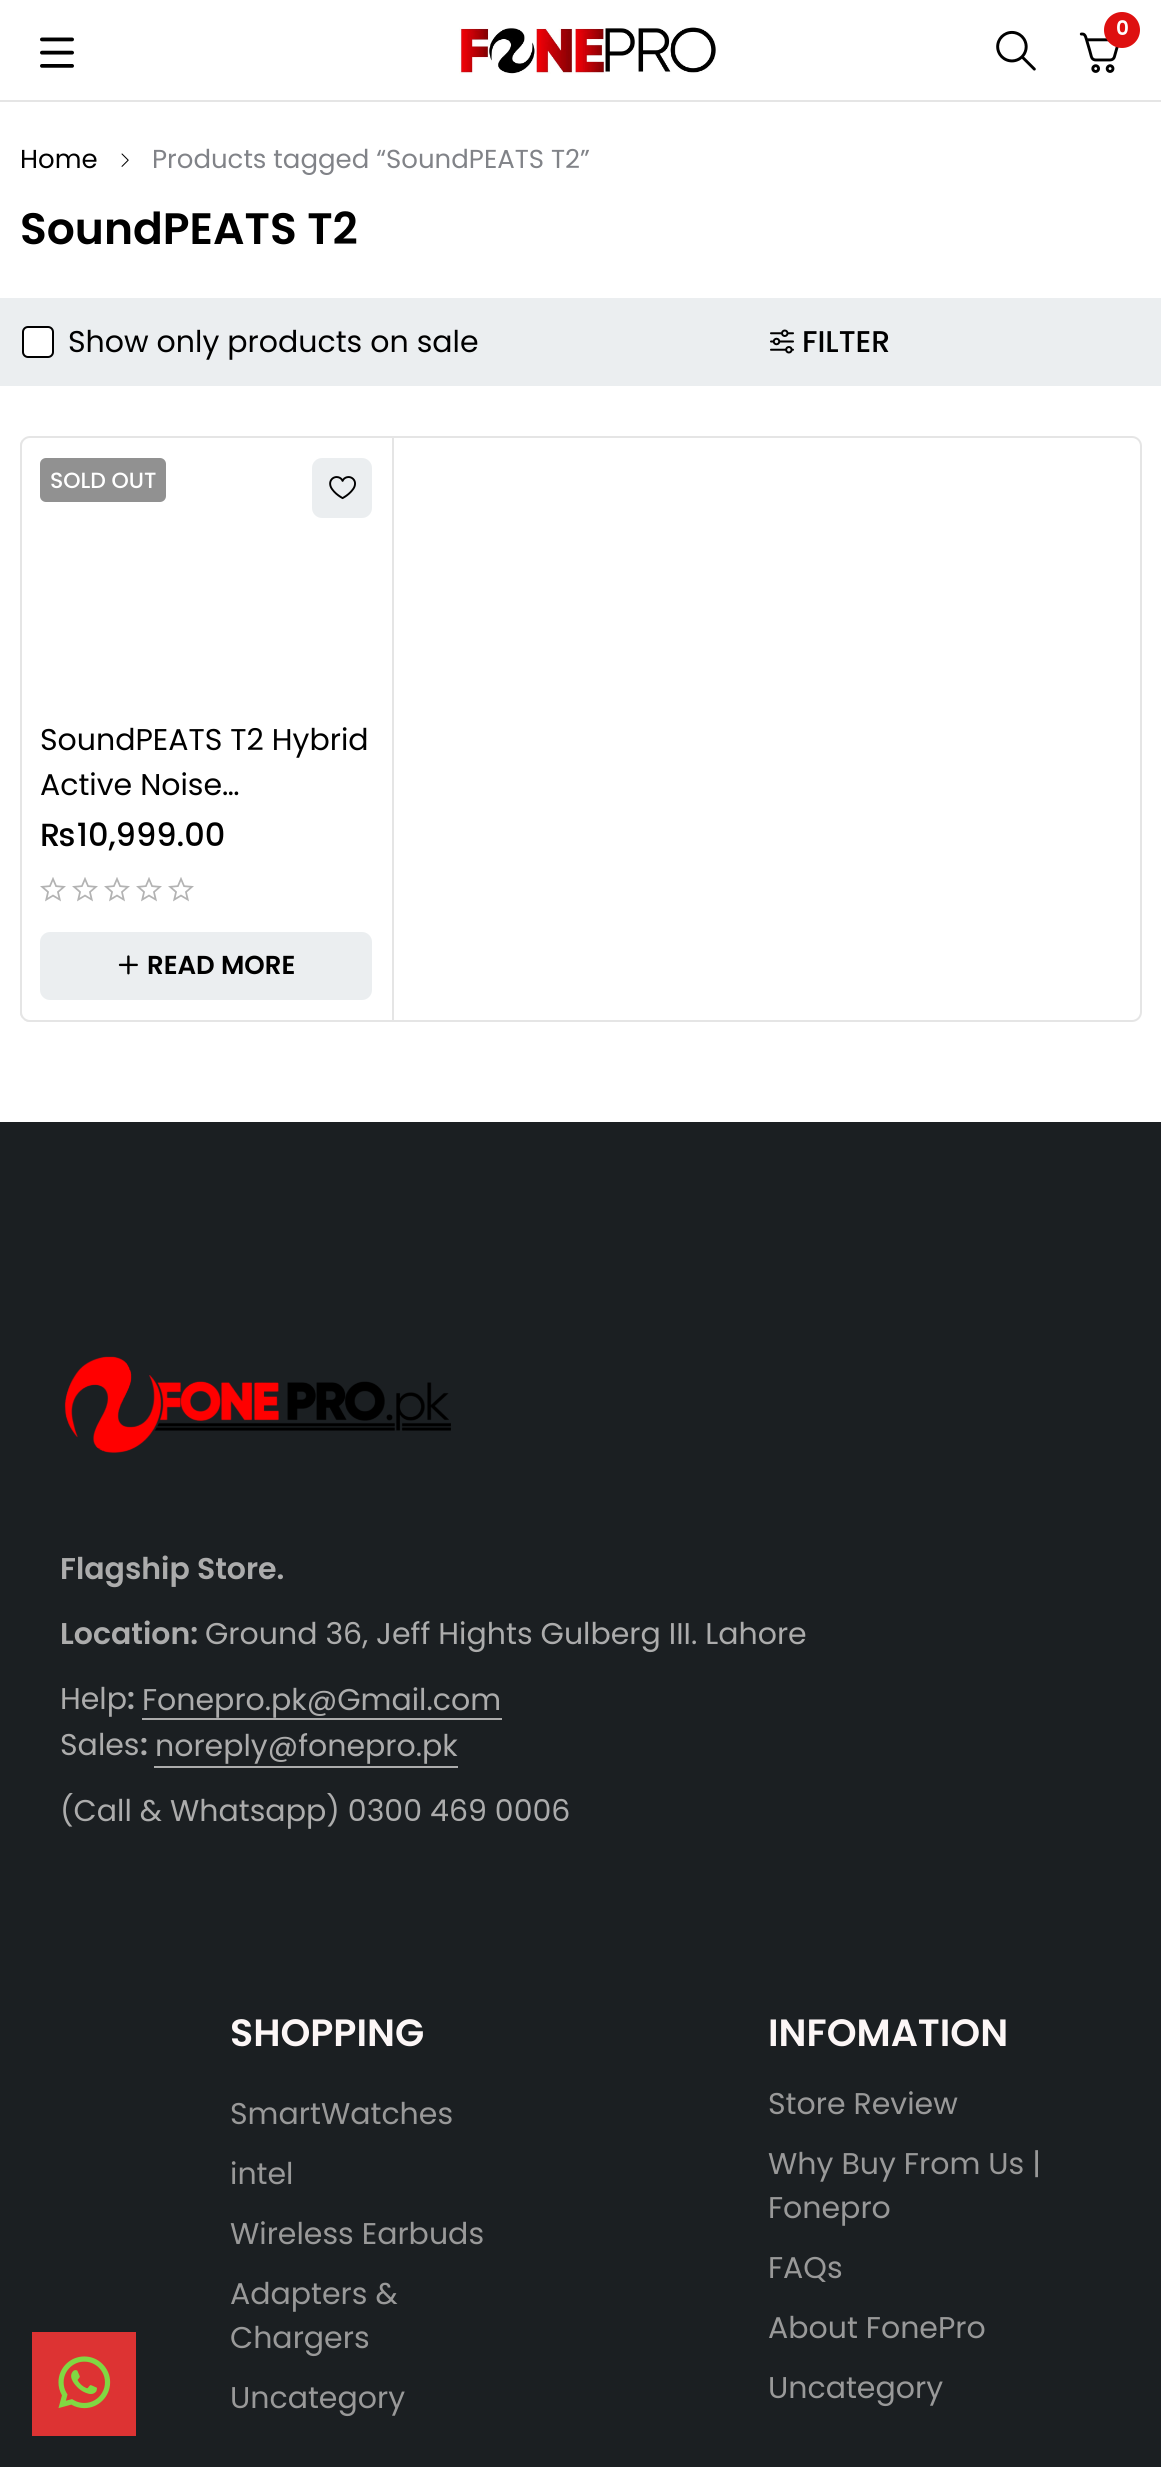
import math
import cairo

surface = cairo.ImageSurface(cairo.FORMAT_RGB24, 1161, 2467)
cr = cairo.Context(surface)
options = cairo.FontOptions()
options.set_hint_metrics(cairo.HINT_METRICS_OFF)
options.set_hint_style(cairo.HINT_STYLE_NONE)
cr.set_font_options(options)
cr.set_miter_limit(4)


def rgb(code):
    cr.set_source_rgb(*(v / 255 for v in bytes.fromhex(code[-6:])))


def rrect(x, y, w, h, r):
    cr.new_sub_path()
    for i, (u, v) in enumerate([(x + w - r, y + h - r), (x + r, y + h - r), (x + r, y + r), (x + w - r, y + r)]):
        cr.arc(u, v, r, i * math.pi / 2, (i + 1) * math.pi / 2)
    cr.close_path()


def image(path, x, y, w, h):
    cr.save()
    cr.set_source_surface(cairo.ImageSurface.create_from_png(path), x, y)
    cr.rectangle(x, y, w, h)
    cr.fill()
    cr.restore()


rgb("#ffffff")
cr.paint()
rgb("#e5e5e5")
cr.rectangle(0, 100, 1161, 2)
cr.fill()
image("img/1.png", 40, 37, 34, 31)
image("img/2.png", 459, 27, 257, 47)
image("img/3.png", 1079, 32, 40, 41)
rgb("#de1010")
cr.arc(1122, 30, 18, 0, 2 * math.pi)
cr.fill()
image("img/4.png", 996, 30, 40, 41)
image("img/5.png", 121, 153, 8, 14)
rgb("#ebeef0")
cr.rectangle(0, 298, 1161, 88)
cr.fill()
rgb("#ffffff")
rrect(23, 327, 30, 30, 5)
cr.fill_preserve()
rgb("#000000")
cr.stroke()
image("img/6.png", 770, 329, 24, 25)
rrect(21, 437, 1120, 584, 9)
rgb("#e5e5e5")
cr.stroke()
cr.rectangle(392, 438, 2, 584)
cr.fill()
cr.save()
rrect(20, 436, 1122, 586, 10)
cr.clip()
cr.rectangle(20, 1020, 374, 2)
cr.fill()
cr.rectangle(20, 436, 2, 586)
cr.fill()
cr.restore()
rgb("#919191")
rrect(40, 458, 126, 44, 6)
cr.fill()
rgb("#ebeef0")
rrect(313, 459, 58, 58, 9)
cr.fill_preserve()
cr.stroke()
image("img/7.png", 329, 476, 27, 24)
image("img/8.png", 40, 877, 154, 25)
rrect(41, 933, 330, 66, 9)
cr.fill_preserve()
cr.stroke()
image("img/9.png", 118, 955, 20, 20)
rgb("#1b1f22")
cr.rectangle(0, 1122, 1161, 1345)
cr.fill()
image("img/10.png", 64, 1356, 387, 97)
for x, y, w, h, color in [
    (142, 1718, 360, 2, "#acacac"),
    (154, 1766, 304, 2, "#acacac"),
    (32, 2332, 104, 104, "#dd3333"),
]:
    rgb(color)
    cr.rectangle(x, y, w, h)
    cr.fill()
image("img/11.png", 58, 2356, 53, 53)
cr.select_font_face("Poppins SemiBold")
cr.set_font_size(20)
rgb("#ffffff")
cr.move_to(1116, 35)
cr.show_text("0")
cr.select_font_face("Poppins")
cr.set_font_size(26)
rgb("#000000")
cr.move_to(20, 168)
cr.show_text("Home")
rgb("#818388")
cr.move_to(152, 168)
cr.show_text("Products tagged “SoundPEATS T2”")
cr.select_font_face("Poppins SemiBold")
cr.set_font_size(44)
rgb("#000000")
cr.move_to(20, 244)
cr.show_text("SoundPEATS T2")
cr.select_font_face("Poppins")
cr.set_font_size(30)
cr.move_to(68, 352)
cr.show_text("Show only products on sale")
cr.select_font_face("Poppins Medium")
cr.move_to(802, 352)
cr.show_text("FILTER")
cr.set_font_size(22)
rgb("#ffffff")
cr.move_to(50, 488)
cr.show_text("SOLD OUT")
cr.select_font_face("Poppins")
cr.set_font_size(30)
rgb("#000000")
cr.move_to(40, 750)
cr.show_text("SoundPEATS T2 Hybrid")
cr.move_to(40, 795)
cr.show_text("Active Noise…")
cr.select_font_face("Poppins Medium")
cr.set_font_size(32)
cr.move_to(40, 846)
cr.show_text("₨10,999.00")
cr.select_font_face("Poppins SemiBold")
cr.set_font_size(26)
cr.move_to(147, 974)
cr.show_text("READ MORE")
cr.set_font_size(30)
rgb("#acacac")
cr.move_to(60, 1579)
cr.show_text("Flagship Store.")
cr.move_to(60, 1644)
cr.show_text("Location:")
cr.select_font_face("Poppins")
cr.move_to(205, 1644)
cr.show_text("Ground 36, Jeff Hights Gulberg III. Lahore")
cr.move_to(60, 1709)
cr.show_text("Help")
cr.select_font_face("Poppins SemiBold")
cr.move_to(127, 1709)
cr.show_text(":")
cr.select_font_face("Poppins")
cr.move_to(142, 1710)
cr.show_text("Fonepro.pk@Gmail.com")
cr.move_to(60, 1755)
cr.show_text("Sales")
cr.select_font_face("Poppins SemiBold")
cr.move_to(140, 1755)
cr.show_text(":")
cr.select_font_face("Poppins")
cr.move_to(155, 1756)
cr.show_text("noreply@fonepro.pk")
cr.move_to(60, 1821)
cr.show_text("(Call & Whatsapp) 0300 469 0006")
cr.select_font_face("Poppins SemiBold")
cr.set_font_size(38)
rgb("#fcf6f6")
cr.move_to(230, 2046)
cr.show_text("SHOPPING")
cr.select_font_face("Poppins")
cr.set_font_size(30)
rgb("#999999")
for x, y, s in [
    (230, 2124, "SmartWatches"),
    (230, 2184, "intel"),
    (230, 2244, "Wireless Earbuds"),
    (230, 2304, "Adapters &"),
    (230, 2348, "Chargers"),
    (230, 2408, "Uncategory"),
]:
    cr.move_to(x, y)
    cr.show_text(s)
cr.select_font_face("Poppins SemiBold")
cr.set_font_size(38)
rgb("#fcf6f6")
cr.move_to(768, 2046)
cr.show_text("INFOMATION")
cr.select_font_face("Poppins")
cr.set_font_size(30)
rgb("#999999")
for x, y, s in [
    (768, 2114, "Store Review"),
    (768, 2174, "Why Buy From Us |"),
    (768, 2218, "Fonepro"),
    (768, 2278, "FAQs"),
    (768, 2338, "About FonePro"),
    (768, 2398, "Uncategory"),
]:
    cr.move_to(x, y)
    cr.show_text(s)
surface.write_to_png("page.png")
